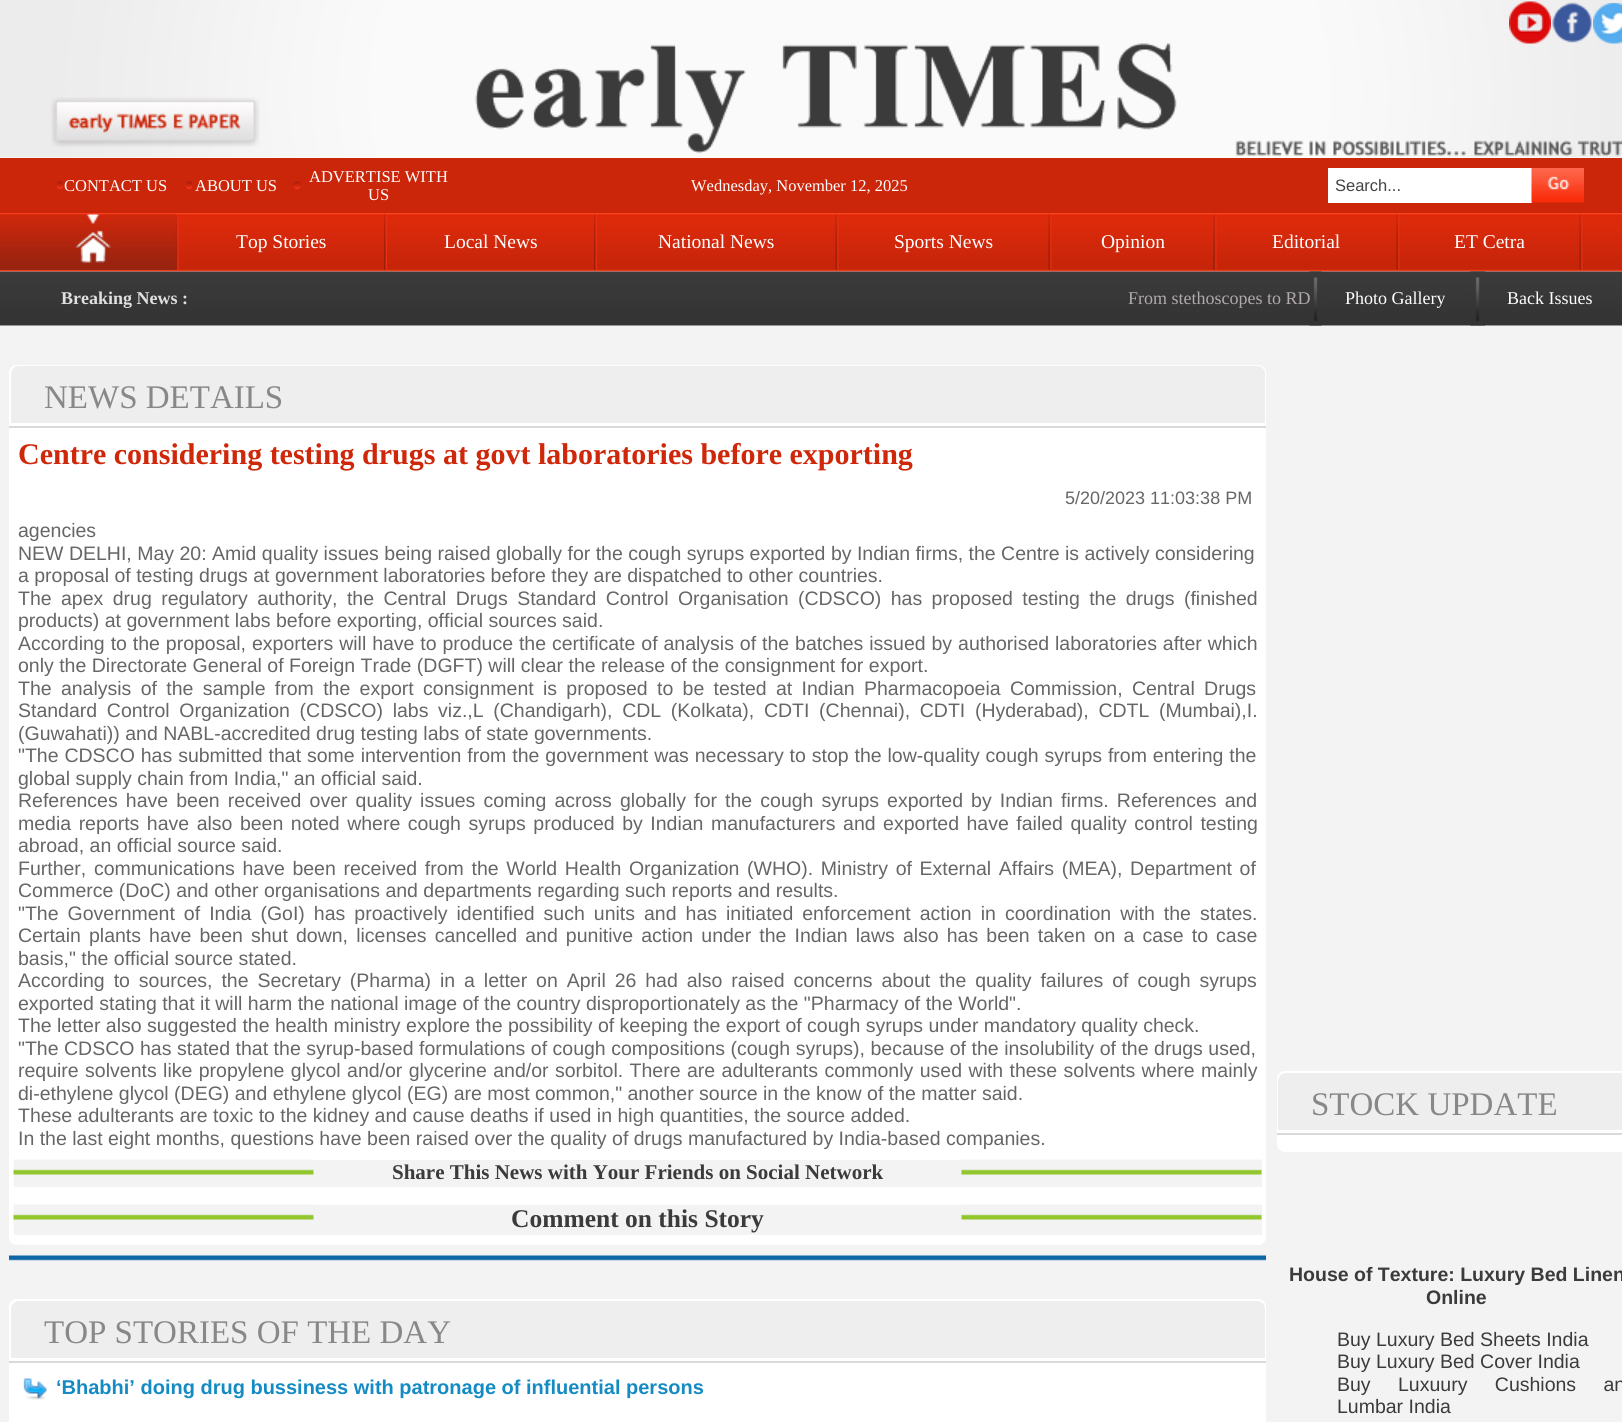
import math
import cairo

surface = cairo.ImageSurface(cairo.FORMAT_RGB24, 1622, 1422)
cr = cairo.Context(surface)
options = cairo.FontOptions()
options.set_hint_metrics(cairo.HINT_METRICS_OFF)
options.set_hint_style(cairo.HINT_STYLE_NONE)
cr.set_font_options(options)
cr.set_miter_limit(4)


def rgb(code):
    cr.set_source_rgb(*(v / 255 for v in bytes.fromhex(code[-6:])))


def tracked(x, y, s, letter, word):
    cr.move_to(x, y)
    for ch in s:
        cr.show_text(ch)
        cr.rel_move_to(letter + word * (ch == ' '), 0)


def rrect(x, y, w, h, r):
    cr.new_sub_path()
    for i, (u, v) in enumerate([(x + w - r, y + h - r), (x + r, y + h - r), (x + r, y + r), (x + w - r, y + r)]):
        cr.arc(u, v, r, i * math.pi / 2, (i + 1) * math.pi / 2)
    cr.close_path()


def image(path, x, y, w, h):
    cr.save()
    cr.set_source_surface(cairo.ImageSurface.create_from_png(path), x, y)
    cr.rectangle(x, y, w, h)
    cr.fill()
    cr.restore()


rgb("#ffffff")
cr.paint()
image("img/1.png", 0, 0, 1622, 158)
image("img/2.png", 51, 97, 209, 50)
image("img/3.png", 1509, 1, 42, 43)
image("img/4.png", 1552, 2, 40, 41)
image("img/5.png", 1593, 3, 29, 41)
image("img/6.png", 475, 43, 1147, 113)
rgb("#cb260a")
cr.rectangle(0, 158, 1622, 55)
cr.fill()
image("img/7.png", 57, 181, 6, 8)
image("img/7.png", 186, 181, 6, 8)
image("img/8.png", 294, 181, 6, 8)
rgb("#ffffff")
cr.rectangle(1328, 168, 204, 35)
cr.fill()
image("img/9.png", 1531, 168, 53, 35)
image("img/10.png", 0, 213, 1622, 59)
image("img/11.png", 0, 214, 176, 56)
image("img/12.png", 175, 214, 4, 56)
image("img/13.png", 384, 214, 3, 56)
image("img/13.png", 594, 214, 3, 56)
image("img/14.png", 835, 214, 4, 56)
image("img/14.png", 1048, 214, 4, 56)
image("img/14.png", 1213, 214, 4, 56)
image("img/14.png", 1396, 214, 4, 56)
image("img/14.png", 1579, 214, 4, 56)
image("img/15.png", 0, 271, 1622, 55)
image("img/16.png", 1309, 271, 13, 55)
image("img/17.png", 1470, 271, 15, 55)
rgb("#f3f3f3")
cr.rectangle(0, 326, 1622, 1096)
cr.fill()
rgb("#ffffff")
rrect(9, 365, 1257, 880, 8)
cr.fill()
rgb("#eeeeee")
cr.new_path()
cr.move_to(19, 366)
cr.line_to(1257, 366)
cr.curve_to(1261.5, 366, 1265, 369.5, 1265, 374)
cr.line_to(1265, 423)
cr.line_to(11, 423)
cr.line_to(11, 374)
cr.curve_to(11, 369.5, 14.5, 366, 19, 366)
cr.close_path()
cr.fill()
rgb("#d9d9d9")
cr.rectangle(9, 426, 1257, 2)
cr.fill()
rgb("#f3f3f3")
cr.rectangle(14, 1160, 1248, 27)
cr.fill()
image("img/18.png", 13, 1159, 301, 26)
image("img/19.png", 961, 1159, 301, 16)
cr.rectangle(14, 1205, 1248, 30)
cr.fill()
image("img/20.png", 13, 1204, 301, 26)
image("img/21.png", 961, 1204, 301, 16)
image("img/22.png", 9, 1255, 1257, 6)
rgb("#ffffff")
rrect(9, 1299, 1257, 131, 8)
cr.fill()
rgb("#eeeeee")
cr.new_path()
cr.move_to(19, 1301)
cr.line_to(1257, 1301)
cr.curve_to(1261.5, 1301, 1265, 1304.5, 1265, 1309)
cr.line_to(1265, 1358)
cr.line_to(11, 1358)
cr.line_to(11, 1309)
cr.curve_to(11, 1304.5, 14.5, 1301, 19, 1301)
cr.close_path()
cr.fill()
rgb("#d9d9d9")
cr.rectangle(9, 1361, 1257, 2)
cr.fill()
image("img/23.png", 23, 1378, 24, 22)
rgb("#ffffff")
rrect(1277, 1071, 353, 81, 8)
cr.fill()
rgb("#eeeeee")
cr.new_path()
cr.move_to(1286, 1073)
cr.line_to(1622, 1073)
cr.curve_to(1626.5, 1073, 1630, 1076.5, 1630, 1081)
cr.line_to(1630, 1130)
cr.line_to(1278, 1130)
cr.line_to(1278, 1081)
cr.curve_to(1278, 1076.5, 1281.5, 1073, 1286, 1073)
cr.close_path()
cr.fill()
rgb("#d9d9d9")
cr.rectangle(1277, 1133, 345, 2)
cr.fill()
cr.select_font_face("Liberation Serif")
cr.set_font_size(16.5)
rgb("#ffffff")
for x, y, s in [
    (64, 191, "CONTACT US"),
    (195, 191, "ABOUT US"),
    (309, 182, "ADVERTISE WITH"),
    (368, 200, "US"),
    (691, 191, "Wednesday, November 12, 2025"),
]:
    cr.move_to(x, y)
    cr.show_text(s)
cr.select_font_face("Liberation Sans")
rgb("#444343")
cr.move_to(1335, 191)
cr.show_text("Search...")
cr.select_font_face("Liberation Serif")
cr.set_font_size(19.5)
rgb("#ffffff")
for x, y, s in [
    (236, 248, "Top Stories"),
    (444, 248, "Local News"),
    (658, 248, "National News"),
    (894, 248, "Sports News"),
    (1101, 248, "Opinion"),
    (1272, 248, "Editorial"),
    (1454, 248, "ET Cetra"),
]:
    cr.move_to(x, y)
    cr.show_text(s)
cr.select_font_face("Liberation Serif", cairo.FONT_SLANT_NORMAL, cairo.FONT_WEIGHT_BOLD)
cr.set_font_size(18)
rgb("#e1e0e0")
cr.move_to(61, 304)
cr.show_text("Breaking News :")
cr.select_font_face("Liberation Serif")
rgb("#b0aaaa")
cr.move_to(1128, 304)
cr.show_text("From stethoscopes to RD")
rgb("#ffffff")
cr.move_to(1345, 304)
cr.show_text("Photo Gallery")
cr.move_to(1507, 304)
cr.show_text("Back Issues")
cr.set_font_size(33)
rgb("#888888")
cr.move_to(44, 408)
cr.show_text("NEWS DETAILS")
cr.select_font_face("Liberation Serif", cairo.FONT_SLANT_NORMAL, cairo.FONT_WEIGHT_BOLD)
cr.set_font_size(30)
rgb("#ce270a")
cr.move_to(18, 464)
cr.show_text("Centre considering testing drugs at govt laboratories before exporting")
cr.select_font_face("Liberation Sans")
cr.set_font_size(18)
rgb("#666666")
cr.move_to(1065, 504)
cr.show_text("5/20/2023 11:03:38 PM")
cr.set_font_size(19.5)
for x, y, s in [
    (18, 537, "agencies"),
    (18, 560, "NEW DELHI, May 20: Amid quality issues being raised globally for the cough syrups exported by Indian firms, the Centre is actively considering"),
    (18, 582, "a proposal of testing drugs at government laboratories before they are dispatched to other countries."),
]:
    cr.move_to(x, y)
    cr.show_text(s)
tracked(18, 605, "The apex drug regulatory authority, the Central Drugs Standard Control Organisation (CDSCO) has proposed testing the drugs (finished", 0, 4)
cr.move_to(18, 627)
cr.show_text("products) at government labs before exporting, official sources said.")
tracked(18, 650, "According to the proposal, exporters will have to produce the certificate of analysis of the batches issued by authorised laboratories after which", 0, 0.5)
cr.move_to(18, 672)
cr.show_text("only the Directorate General of Foreign Trade (DGFT) will clear the release of the consignment for export.")
tracked(18, 695, "The analysis of the sample from the export consignment is proposed to be tested at Indian Pharmacopoeia Commission, Central Drugs", 0, 3.9)
tracked(18, 717, "Standard Control Organization (CDSCO) labs viz.,L (Chandigarh), CDL (Kolkata), CDTI (Chennai), CDTI (Hyderabad), CDTL (Mumbai),I.", 0, 4.25)
cr.move_to(18, 740)
cr.show_text("(Guwahati)) and NABL-accredited drug testing labs of state governments.")
tracked(18, 762, "\"The CDSCO has submitted that some intervention from the government was necessary to stop the low-quality cough syrups from entering the", 0, 0.5)
cr.move_to(18, 785)
cr.show_text("global supply chain from India,\" an official said.")
tracked(18, 807, "References have been received over quality issues coming across globally for the cough syrups exported by Indian firms. References and", 0, 2.7)
tracked(18, 830, "media reports have also been noted where cough syrups produced by Indian manufacturers and exported have failed quality control testing", 0, 2.1)
cr.move_to(18, 852)
cr.show_text("abroad, an official source said.")
tracked(18, 875, "Further, communications have been received from the World Health Organization (WHO). Ministry of External Affairs (MEA), Department of", 0, 2.25)
cr.move_to(18, 897)
cr.show_text("Commerce (DoC) and other organisations and departments regarding such reports and results.")
tracked(18, 920, "\"The Government of India (GoI) has proactively identified such units and has initiated enforcement action in coordination with the states.", 0, 3.6)
tracked(18, 942, "Certain plants have been shut down, licenses cancelled and punitive action under the Indian laws also has been taken on a case to case", 0, 2.7)
cr.move_to(18, 965)
cr.show_text("basis,\" the official source stated.")
tracked(18, 987, "According to sources, the Secretary (Pharma) in a letter on April 26 had also raised concerns about the quality failures of cough syrups", 0, 3.5)
cr.move_to(18, 1010)
cr.show_text("exported stating that it will harm the national image of the country disproportionately as the \"Pharmacy of the World\".")
cr.move_to(18, 1032)
cr.show_text("The letter also suggested the health ministry explore the possibility of keeping the export of cough syrups under mandatory quality check.")
tracked(18, 1055, "\"The CDSCO has stated that the syrup-based formulations of cough compositions (cough syrups), because of the insolubility of the drugs used,", 0, 0.1)
tracked(18, 1077, "require solvents like propylene glycol and/or glycerine and/or sorbitol. There are adulterants commonly used with these solvents where mainly", 0, 1)
for x, y, s in [
    (18, 1100, "di-ethylene glycol (DEG) and ethylene glycol (EG) are most common,\" another source in the know of the matter said."),
    (18, 1122, "These adulterants are toxic to the kidney and cause deaths if used in high quantities, the source added."),
    (18, 1145, "In the last eight months, questions have been raised over the quality of drugs manufactured by India-based companies."),
]:
    cr.move_to(x, y)
    cr.show_text(s)
cr.select_font_face("Liberation Serif", cairo.FONT_SLANT_NORMAL, cairo.FONT_WEIGHT_BOLD)
cr.set_font_size(21)
rgb("#3b3b3b")
cr.move_to(392, 1179)
cr.show_text("Share This News with Your Friends on Social Network")
cr.set_font_size(25.5)
cr.move_to(511, 1227)
cr.show_text("Comment on this Story")
cr.select_font_face("Liberation Serif")
cr.set_font_size(33)
rgb("#888888")
cr.move_to(44, 1343)
cr.show_text("TOP STORIES OF THE DAY")
cr.select_font_face("Liberation Sans", cairo.FONT_SLANT_NORMAL, cairo.FONT_WEIGHT_BOLD)
cr.set_font_size(20)
rgb("#148bc3")
cr.move_to(56, 1394)
cr.show_text("‘Bhabhi’ doing drug bussiness with patronage of influential persons")
cr.select_font_face("Liberation Serif")
cr.set_font_size(33)
rgb("#888888")
cr.move_to(1311, 1115)
cr.show_text("STOCK UPDATE")
cr.select_font_face("Liberation Sans", cairo.FONT_SLANT_NORMAL, cairo.FONT_WEIGHT_BOLD)
cr.set_font_size(19.5)
rgb("#3b3b3b")
cr.move_to(1289, 1281)
cr.show_text("House of Texture: Luxury Bed Linen")
cr.move_to(1426, 1304)
cr.show_text("Online")
cr.select_font_face("Liberation Sans")
cr.move_to(1337, 1346)
cr.show_text("Buy Luxury Bed Sheets India")
cr.move_to(1337, 1368)
cr.show_text("Buy Luxury Bed Cover India")
tracked(1337, 1391, "Buy Luxuury Cushions an", 0, 22)
cr.move_to(1337, 1413)
cr.show_text("Lumbar India")
surface.write_to_png("page.png")
